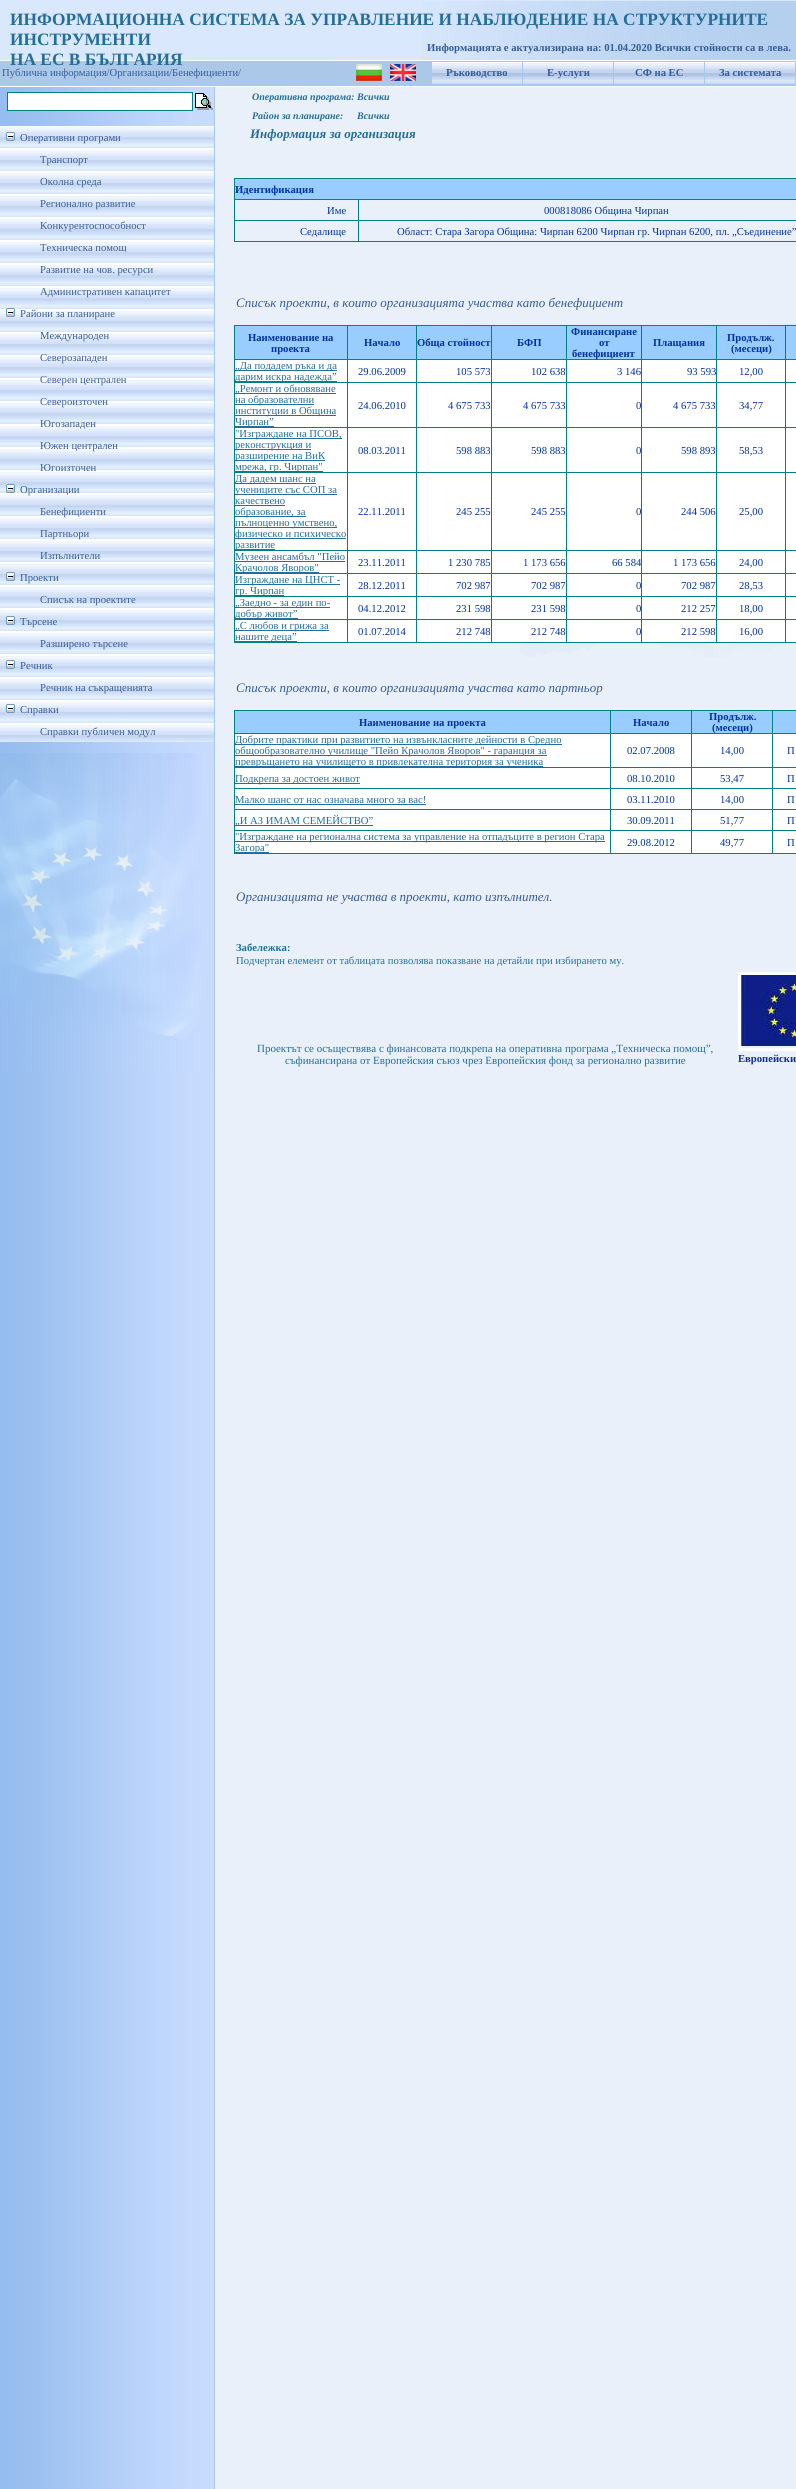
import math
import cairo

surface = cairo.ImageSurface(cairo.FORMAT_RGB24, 796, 2489)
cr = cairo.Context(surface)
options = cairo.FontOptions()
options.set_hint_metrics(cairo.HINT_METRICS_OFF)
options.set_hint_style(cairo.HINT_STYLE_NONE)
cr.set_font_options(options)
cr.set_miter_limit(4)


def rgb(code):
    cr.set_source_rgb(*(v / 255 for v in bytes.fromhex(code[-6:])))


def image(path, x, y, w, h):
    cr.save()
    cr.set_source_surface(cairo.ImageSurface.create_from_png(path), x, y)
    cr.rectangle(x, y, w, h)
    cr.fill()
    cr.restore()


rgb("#ffffff")
cr.paint()
image("img/1.png", 0, 87, 796, 2402)
rgb("#dae8fd")
cr.rectangle(0, 0, 796, 60)
cr.fill()
image("img/2.png", 421, 1, 375, 59)
for x, y, w, h, color in [
    (0, 61, 796, 25, "#abc8e9"),
    (340, 61, 456, 1, "#a8c7ec"),
    (795, 61, 1, 24, "#a8c7ec"),
    (340, 84, 456, 1, "#a8c7ec"),
    (340, 61, 1, 24, "#a8c7ec"),
]:
    rgb(color)
    cr.rectangle(x, y, w, h)
    cr.fill()
image("img/3.png", 356, 64, 26, 17)
image("img/4.png", 390, 64, 26, 17)
cr.rectangle(431, 61, 1, 24)
cr.fill()
image("img/5.png", 432, 62, 90, 22)
cr.rectangle(522, 61, 1, 24)
cr.fill()
image("img/5.png", 523, 62, 90, 22)
cr.rectangle(613, 61, 1, 24)
cr.fill()
image("img/5.png", 614, 62, 90, 22)
cr.rectangle(704, 61, 1, 24)
cr.fill()
image("img/5.png", 705, 62, 90, 22)
rgb("#ffffff")
cr.rectangle(7.5, 92.5, 185, 18)
cr.fill_preserve()
rgb("#008080")
cr.set_line_width(1)
cr.stroke()
image("img/6.png", 195, 93, 18, 17)
rgb("#e8f0f9")
cr.rectangle(215, 115, 7, 645)
cr.fill()
image("img/7.png", 453, 323, 343, 334)
rgb("#c7dbfe")
cr.rectangle(209, 115, 5, 645)
cr.fill()
rgb("#a8c7ec")
cr.rectangle(214, 115, 1, 645)
cr.fill()
image("img/8.png", 0, 126, 214, 616)
image("img/9.png", 6, 132, 9, 9)
image("img/9.png", 6, 308, 9, 9)
image("img/9.png", 6, 484, 9, 9)
image("img/9.png", 6, 572, 9, 9)
image("img/9.png", 6, 616, 9, 9)
image("img/9.png", 6, 660, 9, 9)
image("img/9.png", 6, 704, 9, 9)
image("img/10.png", 0, 753, 210, 319)
for x, y, w, h, color in [
    (234, 178, 562, 1, "#008080"),
    (234, 241, 562, 1, "#008080"),
    (234, 178, 1, 64, "#008080"),
    (235, 179, 561, 20, "#99ccff"),
    (358, 199, 438, 1, "#008080"),
    (358, 220, 438, 1, "#008080"),
    (358, 220, 1, 22, "#008080"),
    (234, 220, 125, 1, "#008080"),
    (358, 199, 1, 22, "#008080"),
    (234, 199, 125, 1, "#008080"),
    (234, 325, 562, 1, "#008080"),
    (234, 642, 562, 1, "#008080"),
    (234, 325, 1, 318, "#008080"),
    (235, 326, 561, 33, "#99ccff"),
    (785, 359, 11, 1, "#008080"),
    (785, 382, 11, 1, "#008080"),
    (785, 427, 11, 1, "#008080"),
    (785, 472, 11, 1, "#008080"),
    (785, 550, 11, 1, "#008080"),
    (785, 573, 11, 1, "#008080"),
    (785, 596, 11, 1, "#008080"),
    (785, 619, 11, 1, "#008080"),
    (785, 619, 1, 24, "#008080"),
    (716, 619, 70, 1, "#008080"),
    (785, 596, 1, 24, "#008080"),
    (716, 596, 70, 1, "#008080"),
    (785, 573, 1, 24, "#008080"),
    (716, 573, 70, 1, "#008080"),
    (785, 550, 1, 24, "#008080"),
    (716, 550, 70, 1, "#008080"),
    (785, 472, 1, 79, "#008080"),
    (716, 472, 70, 1, "#008080"),
    (785, 427, 1, 46, "#008080"),
    (716, 427, 70, 1, "#008080"),
    (785, 382, 1, 46, "#008080"),
    (716, 382, 70, 1, "#008080"),
    (785, 359, 1, 24, "#008080"),
    (716, 359, 70, 1, "#008080"),
    (716, 619, 1, 24, "#008080"),
    (641, 619, 76, 1, "#008080"),
    (716, 596, 1, 24, "#008080"),
    (641, 596, 76, 1, "#008080"),
    (716, 573, 1, 24, "#008080"),
    (641, 573, 76, 1, "#008080"),
    (716, 550, 1, 24, "#008080"),
    (641, 550, 76, 1, "#008080"),
    (716, 472, 1, 79, "#008080"),
    (641, 472, 76, 1, "#008080"),
    (716, 427, 1, 46, "#008080"),
    (641, 427, 76, 1, "#008080"),
    (716, 382, 1, 46, "#008080"),
    (641, 382, 76, 1, "#008080"),
    (716, 359, 1, 24, "#008080"),
    (641, 359, 76, 1, "#008080"),
    (641, 619, 1, 24, "#008080"),
    (566, 619, 76, 1, "#008080"),
    (641, 596, 1, 24, "#008080"),
    (566, 596, 76, 1, "#008080"),
    (641, 573, 1, 24, "#008080"),
    (566, 573, 76, 1, "#008080"),
    (641, 550, 1, 24, "#008080"),
    (566, 550, 76, 1, "#008080"),
    (641, 472, 1, 79, "#008080"),
    (566, 472, 76, 1, "#008080"),
    (641, 427, 1, 46, "#008080"),
    (566, 427, 76, 1, "#008080"),
    (641, 382, 1, 46, "#008080"),
    (566, 382, 76, 1, "#008080"),
    (641, 359, 1, 24, "#008080"),
    (566, 359, 76, 1, "#008080"),
    (566, 619, 1, 24, "#008080"),
    (491, 619, 76, 1, "#008080"),
    (566, 596, 1, 24, "#008080"),
    (491, 596, 76, 1, "#008080"),
    (566, 573, 1, 24, "#008080"),
    (491, 573, 76, 1, "#008080"),
    (566, 550, 1, 24, "#008080"),
    (491, 550, 76, 1, "#008080"),
    (566, 472, 1, 79, "#008080"),
    (491, 472, 76, 1, "#008080"),
    (566, 427, 1, 46, "#008080"),
    (491, 427, 76, 1, "#008080"),
    (566, 382, 1, 46, "#008080"),
    (491, 382, 76, 1, "#008080"),
    (566, 359, 1, 24, "#008080"),
    (491, 359, 76, 1, "#008080"),
    (491, 619, 1, 24, "#008080"),
    (416, 619, 76, 1, "#008080"),
    (491, 596, 1, 24, "#008080"),
    (416, 596, 76, 1, "#008080"),
    (491, 573, 1, 24, "#008080"),
    (416, 573, 76, 1, "#008080"),
    (491, 550, 1, 24, "#008080"),
    (416, 550, 76, 1, "#008080"),
    (491, 472, 1, 79, "#008080"),
    (416, 472, 76, 1, "#008080"),
    (491, 427, 1, 46, "#008080"),
    (416, 427, 76, 1, "#008080"),
    (491, 382, 1, 46, "#008080"),
    (416, 382, 76, 1, "#008080"),
    (491, 359, 1, 24, "#008080"),
    (416, 359, 76, 1, "#008080"),
    (416, 619, 1, 24, "#008080"),
    (347, 619, 70, 1, "#008080"),
    (416, 596, 1, 24, "#008080"),
    (347, 596, 70, 1, "#008080"),
    (416, 573, 1, 24, "#008080"),
    (347, 573, 70, 1, "#008080"),
    (416, 550, 1, 24, "#008080"),
    (347, 550, 70, 1, "#008080"),
    (416, 472, 1, 79, "#008080"),
    (347, 472, 70, 1, "#008080"),
    (416, 427, 1, 46, "#008080"),
    (347, 427, 70, 1, "#008080"),
    (416, 382, 1, 46, "#008080"),
    (347, 382, 70, 1, "#008080"),
    (416, 359, 1, 24, "#008080"),
    (347, 359, 70, 1, "#008080"),
    (347, 619, 1, 24, "#008080"),
    (234, 619, 114, 1, "#008080"),
    (347, 596, 1, 24, "#008080"),
    (234, 596, 114, 1, "#008080"),
    (347, 573, 1, 24, "#008080"),
    (234, 573, 114, 1, "#008080"),
    (347, 550, 1, 24, "#008080"),
    (234, 550, 114, 1, "#008080"),
    (347, 472, 1, 79, "#008080"),
    (234, 472, 114, 1, "#008080"),
    (347, 427, 1, 46, "#008080"),
    (234, 427, 114, 1, "#008080"),
    (347, 382, 1, 46, "#008080"),
    (234, 382, 114, 1, "#008080"),
    (347, 359, 1, 24, "#008080"),
    (234, 359, 114, 1, "#008080"),
    (347, 325, 1, 35, "#008080"),
    (416, 325, 1, 35, "#008080"),
    (491, 325, 1, 35, "#008080"),
    (566, 325, 1, 35, "#008080"),
    (641, 325, 1, 35, "#008080"),
    (716, 325, 1, 35, "#008080"),
    (785, 325, 1, 35, "#008080"),
    (235, 360, 112, 22, "#ffffff"),
    (235, 370, 102, 1, "#246e99"),
    (235, 381, 102, 1, "#246e99"),
    (348, 360, 68, 22, "#ffffff"),
    (417, 360, 74, 22, "#ffffff"),
    (492, 360, 74, 22, "#ffffff"),
    (567, 360, 74, 22, "#ffffff"),
    (642, 360, 74, 22, "#ffffff"),
    (717, 360, 68, 22, "#ffffff"),
    (786, 360, 10, 22, "#ffffff"),
    (235, 383, 112, 44, "#ffffff"),
    (235, 393, 101, 1, "#246e99"),
    (235, 404, 79, 1, "#246e99"),
    (235, 415, 101, 1, "#246e99"),
    (235, 426, 39, 1, "#246e99"),
    (348, 383, 68, 44, "#ffffff"),
    (417, 383, 74, 44, "#ffffff"),
    (492, 383, 74, 44, "#ffffff"),
    (567, 383, 74, 44, "#ffffff"),
    (642, 383, 74, 44, "#ffffff"),
    (717, 383, 68, 44, "#ffffff"),
    (786, 383, 10, 44, "#ffffff"),
    (235, 428, 112, 44, "#ffffff"),
    (235, 438, 107, 1, "#246e99"),
    (235, 449, 76, 1, "#246e99"),
    (235, 460, 90, 1, "#246e99"),
    (235, 471, 88, 1, "#246e99"),
    (348, 428, 68, 44, "#ffffff"),
    (417, 428, 74, 44, "#ffffff"),
    (492, 428, 74, 44, "#ffffff"),
    (567, 428, 74, 44, "#ffffff"),
    (642, 428, 74, 44, "#ffffff"),
    (717, 428, 68, 44, "#ffffff"),
    (786, 428, 10, 44, "#ffffff"),
    (235, 473, 112, 77, "#ffffff"),
    (235, 483, 81, 1, "#246e99"),
    (235, 494, 102, 1, "#246e99"),
    (235, 505, 50, 1, "#246e99"),
    (235, 516, 71, 1, "#246e99"),
    (235, 527, 102, 1, "#246e99"),
    (235, 538, 111, 1, "#246e99"),
    (235, 549, 40, 1, "#246e99"),
    (348, 473, 68, 77, "#ffffff"),
    (417, 473, 74, 77, "#ffffff"),
    (492, 473, 74, 77, "#ffffff"),
    (567, 473, 74, 77, "#ffffff"),
    (642, 473, 74, 77, "#ffffff"),
    (717, 473, 68, 77, "#ffffff"),
    (786, 473, 10, 77, "#ffffff"),
    (235, 551, 112, 22, "#ffffff"),
    (235, 561, 110, 1, "#246e99"),
    (235, 572, 84, 1, "#246e99"),
    (348, 551, 68, 22, "#ffffff"),
    (417, 551, 74, 22, "#ffffff"),
    (492, 551, 74, 22, "#ffffff"),
    (567, 551, 74, 22, "#ffffff"),
    (642, 551, 74, 22, "#ffffff"),
    (717, 551, 68, 22, "#ffffff"),
    (786, 551, 10, 22, "#ffffff"),
    (235, 574, 112, 22, "#ffffff"),
    (235, 584, 105, 1, "#246e99"),
    (235, 595, 49, 1, "#246e99"),
    (348, 574, 68, 22, "#ffffff"),
    (417, 574, 74, 22, "#ffffff"),
    (492, 574, 74, 22, "#ffffff"),
    (567, 574, 74, 22, "#ffffff"),
    (642, 574, 74, 22, "#ffffff"),
    (717, 574, 68, 22, "#ffffff"),
    (786, 574, 10, 22, "#ffffff"),
    (235, 597, 112, 22, "#ffffff"),
    (235, 607, 95, 1, "#246e99"),
    (235, 618, 63, 1, "#246e99"),
    (348, 597, 68, 22, "#ffffff"),
    (417, 597, 74, 22, "#ffffff"),
    (492, 597, 74, 22, "#ffffff"),
    (567, 597, 74, 22, "#ffffff"),
    (642, 597, 74, 22, "#ffffff"),
    (717, 597, 68, 22, "#ffffff"),
    (786, 597, 10, 22, "#ffffff"),
    (235, 620, 112, 22, "#ffffff"),
    (235, 630, 94, 1, "#246e99"),
    (235, 641, 62, 1, "#246e99"),
    (348, 620, 68, 22, "#ffffff"),
    (417, 620, 74, 22, "#ffffff"),
    (492, 620, 74, 22, "#ffffff"),
    (567, 620, 74, 22, "#ffffff"),
    (642, 620, 74, 22, "#ffffff"),
    (717, 620, 68, 22, "#ffffff"),
    (786, 620, 10, 22, "#ffffff"),
    (234, 710, 562, 1, "#008080"),
    (234, 853, 562, 1, "#008080"),
    (234, 710, 1, 144, "#008080"),
    (235, 711, 561, 22, "#99ccff"),
    (772, 733, 24, 1, "#008080"),
    (772, 767, 24, 1, "#008080"),
    (772, 788, 24, 1, "#008080"),
    (772, 809, 24, 1, "#008080"),
    (772, 830, 24, 1, "#008080"),
    (772, 830, 1, 24, "#008080"),
    (691, 830, 82, 1, "#008080"),
    (772, 809, 1, 22, "#008080"),
    (691, 809, 82, 1, "#008080"),
    (772, 788, 1, 22, "#008080"),
    (691, 788, 82, 1, "#008080"),
    (772, 767, 1, 22, "#008080"),
    (691, 767, 82, 1, "#008080"),
    (772, 733, 1, 35, "#008080"),
    (691, 733, 82, 1, "#008080"),
    (691, 830, 1, 24, "#008080"),
    (610, 830, 82, 1, "#008080"),
    (691, 809, 1, 22, "#008080"),
    (610, 809, 82, 1, "#008080"),
    (691, 788, 1, 22, "#008080"),
    (610, 788, 82, 1, "#008080"),
    (691, 767, 1, 22, "#008080"),
    (610, 767, 82, 1, "#008080"),
    (691, 733, 1, 35, "#008080"),
    (610, 733, 82, 1, "#008080"),
    (610, 830, 1, 24, "#008080"),
    (234, 830, 377, 1, "#008080"),
    (610, 809, 1, 22, "#008080"),
    (234, 809, 377, 1, "#008080"),
    (610, 788, 1, 22, "#008080"),
    (234, 788, 377, 1, "#008080"),
    (610, 767, 1, 22, "#008080"),
    (234, 767, 377, 1, "#008080"),
    (610, 733, 1, 35, "#008080"),
    (234, 733, 377, 1, "#008080"),
    (610, 710, 1, 24, "#008080"),
    (691, 710, 1, 24, "#008080"),
    (772, 710, 1, 24, "#008080"),
    (235, 734, 375, 33, "#ffffff"),
    (235, 744, 327, 1, "#246e99"),
    (235, 755, 312, 1, "#246e99"),
    (235, 766, 308, 1, "#246e99"),
    (611, 734, 80, 33, "#ffffff"),
    (692, 734, 80, 33, "#ffffff"),
    (773, 734, 23, 33, "#ffffff"),
    (235, 768, 375, 20, "#ffffff"),
    (235, 783, 125, 1, "#246e99"),
    (611, 768, 80, 20, "#ffffff"),
    (692, 768, 80, 20, "#ffffff"),
    (773, 768, 23, 20, "#ffffff"),
    (235, 789, 375, 20, "#ffffff"),
    (235, 804, 191, 1, "#246e99"),
    (611, 789, 80, 20, "#ffffff"),
    (692, 789, 80, 20, "#ffffff"),
    (773, 789, 23, 20, "#ffffff"),
    (235, 810, 375, 20, "#ffffff"),
    (235, 825, 138, 1, "#246e99"),
    (611, 810, 80, 20, "#ffffff"),
    (692, 810, 80, 20, "#ffffff"),
    (773, 810, 23, 20, "#ffffff"),
    (235, 831, 375, 22, "#ffffff"),
    (235, 841, 370, 1, "#246e99"),
    (235, 852, 34, 1, "#246e99"),
    (611, 831, 80, 22, "#ffffff"),
    (692, 831, 80, 22, "#ffffff"),
    (773, 831, 23, 22, "#ffffff"),
]:
    rgb(color)
    cr.rectangle(x, y, w, h)
    cr.fill()
cr.rectangle(739.5, 973.5, 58, 76)
cr.set_line_width(3)
cr.stroke()
image("img/11.png", 741, 975, 55, 71)
cr.select_font_face("Liberation Serif", cairo.FONT_SLANT_NORMAL, cairo.FONT_WEIGHT_BOLD)
cr.set_font_size(17.35)
rgb("#246e99")
for x, y, s in [
    (10, 25, "ИНФОРМАЦИОННА СИСТЕМА ЗА УПРАВЛЕНИЕ И НАБЛЮДЕНИЕ НА СТРУКТУРНИТЕ"),
    (10, 45, "ИНСТРУМЕНТИ"),
    (10, 65, "НА ЕС В БЪЛГАРИЯ"),
]:
    cr.move_to(x, y)
    cr.show_text(s)
cr.set_font_size(10.65)
rgb("#365d98")
cr.move_to(427, 51)
cr.show_text("Информацията е актуализирана на: 01.04.2020 Всички стойности са в лева.")
cr.select_font_face("Liberation Serif")
cr.move_to(2, 76)
cr.show_text("Публична информация/Организации/Бенефициенти/")
cr.select_font_face("Liberation Serif", cairo.FONT_SLANT_NORMAL, cairo.FONT_WEIGHT_BOLD)
for x, y, s in [
    (446, 76, "Ръководство"),
    (547, 76, "Е-услуги"),
    (635, 76, "СФ на ЕС"),
    (719, 76, "За системата"),
]:
    cr.move_to(x, y)
    cr.show_text(s)
cr.select_font_face("Liberation Serif", cairo.FONT_SLANT_ITALIC, cairo.FONT_WEIGHT_BOLD)
cr.set_font_size(10)
rgb("#246e99")
for x, y, s in [
    (252, 100, "Оперативна програма:"),
    (357, 100, "Всички"),
    (252, 119, "Район за планиране:"),
    (357, 119, "Всички"),
]:
    cr.move_to(x, y)
    cr.show_text(s)
cr.set_font_size(13)
cr.move_to(250, 138)
cr.show_text("Информация за организация")
cr.select_font_face("Liberation Serif")
cr.set_font_size(10.65)
rgb("#365d98")
for x, y, s in [
    (20, 141, "Оперативни програми"),
    (40, 163, "Транспорт"),
    (40, 185, "Околна среда"),
    (40, 207, "Регионално развитие"),
    (40, 229, "Конкурентоспособност"),
    (40, 251, "Техническа помощ"),
    (40, 273, "Развитие на чов. ресурси"),
    (40, 295, "Административен капацитет"),
    (20, 317, "Райони за планиране"),
    (40, 339, "Международен"),
    (40, 361, "Северозападен"),
    (40, 383, "Северен централен"),
    (40, 405, "Североизточен"),
    (40, 427, "Югозападен"),
    (40, 449, "Южен централен"),
    (40, 471, "Югоизточен"),
    (20, 493, "Организации"),
    (40, 515, "Бенефициенти"),
    (40, 537, "Партньори"),
    (40, 559, "Изпълнители"),
    (20, 581, "Проекти"),
    (40, 603, "Списък на проектите"),
    (20, 625, "Търсене"),
    (40, 647, "Разширено търсене"),
    (20, 669, "Речник"),
    (40, 691, "Речник на съкращенията"),
    (20, 713, "Справки"),
    (40, 735, "Справки публичен модул"),
]:
    cr.move_to(x, y)
    cr.show_text(s)
cr.select_font_face("Liberation Serif", cairo.FONT_SLANT_NORMAL, cairo.FONT_WEIGHT_BOLD)
rgb("#003399")
cr.move_to(235, 193)
cr.show_text("Идентификация")
cr.select_font_face("Liberation Serif")
for x, y, s in [
    (327, 214, "Име"),
    (544, 214, "000818086 Община Чирпан"),
    (300, 235, "Седалище"),
    (397, 235, "Област: Стара Загора Oбщина: Чирпан 6200 Чирпан гр. Чирпан 6200, пл. „Съединение”"),
]:
    cr.move_to(x, y)
    cr.show_text(s)
cr.select_font_face("Liberation Serif", cairo.FONT_SLANT_ITALIC)
cr.set_font_size(13)
rgb("#365d98")
cr.move_to(236, 307)
cr.show_text("Списък проекти, в които организацията участва като бенефициент")
cr.select_font_face("Liberation Serif", cairo.FONT_SLANT_NORMAL, cairo.FONT_WEIGHT_BOLD)
cr.set_font_size(10.65)
rgb("#003399")
for x, y, s in [
    (248, 341, "Наименование на"),
    (271, 352, "проекта"),
    (364, 346, "Начало"),
    (417, 346, "Обща стойност"),
    (517, 346, "БФП"),
    (571, 335, "Финансиране"),
    (599, 346, "от"),
    (572, 357, "бенефициент"),
    (653, 346, "Плащания"),
    (727, 341, "Продълж."),
    (731, 352, "(месеци)"),
]:
    cr.move_to(x, y)
    cr.show_text(s)
cr.select_font_face("Liberation Serif")
rgb("#246e99")
cr.move_to(235, 369)
cr.show_text("„Да подадем ръка и да")
cr.move_to(235, 380)
cr.show_text("дарим искра надежда”")
rgb("#003399")
for x, y, s in [
    (358, 375, "29.06.2009"),
    (456, 375, "105 573"),
    (531, 375, "102 638"),
    (617, 375, "3 146"),
    (687, 375, "93 593"),
    (739, 375, "12,00"),
]:
    cr.move_to(x, y)
    cr.show_text(s)
rgb("#246e99")
for x, y, s in [
    (235, 392, "„Ремонт и обновяване"),
    (235, 403, "на образователни"),
    (235, 414, "институции в Община"),
    (235, 425, "Чирпан”"),
]:
    cr.move_to(x, y)
    cr.show_text(s)
rgb("#003399")
for x, y, s in [
    (358, 409, "24.06.2010"),
    (448, 409, "4 675 733"),
    (523, 409, "4 675 733"),
    (636, 409, "0"),
    (673, 409, "4 675 733"),
    (739, 409, "34,77"),
]:
    cr.move_to(x, y)
    cr.show_text(s)
rgb("#246e99")
for x, y, s in [
    (235, 437, "\"Изграждане на ПСОВ,"),
    (235, 448, "реконструкция и"),
    (235, 459, "разширение на ВиК"),
    (235, 470, "мрежа, гр. Чирпан\""),
]:
    cr.move_to(x, y)
    cr.show_text(s)
rgb("#003399")
for x, y, s in [
    (358, 454, "08.03.2011"),
    (456, 454, "598 883"),
    (531, 454, "598 883"),
    (636, 454, "0"),
    (681, 454, "598 893"),
    (739, 454, "58,53"),
]:
    cr.move_to(x, y)
    cr.show_text(s)
rgb("#246e99")
for x, y, s in [
    (235, 482, "Да дадем шанс на"),
    (235, 493, "учениците със СОП за"),
    (235, 504, "качествено"),
    (235, 515, "образование, за"),
    (235, 526, "пълноценно умствено,"),
    (235, 537, "физическо и психическо"),
    (235, 548, "развитие"),
]:
    cr.move_to(x, y)
    cr.show_text(s)
rgb("#003399")
for x, y, s in [
    (358, 515, "22.11.2011"),
    (456, 515, "245 255"),
    (531, 515, "245 255"),
    (636, 515, "0"),
    (681, 515, "244 506"),
    (739, 515, "25,00"),
]:
    cr.move_to(x, y)
    cr.show_text(s)
rgb("#246e99")
cr.move_to(235, 560)
cr.show_text("Музеен ансамбъл \"Пейо")
cr.move_to(235, 571)
cr.show_text("Крачолов Яворов\"")
rgb("#003399")
for x, y, s in [
    (358, 566, "23.11.2011"),
    (448, 566, "1 230 785"),
    (523, 566, "1 173 656"),
    (612, 566, "66 584"),
    (673, 566, "1 173 656"),
    (739, 566, "24,00"),
]:
    cr.move_to(x, y)
    cr.show_text(s)
rgb("#246e99")
cr.move_to(235, 583)
cr.show_text("Изграждане на ЦНСТ -")
cr.move_to(235, 594)
cr.show_text("гр. Чирпан")
rgb("#003399")
for x, y, s in [
    (358, 589, "28.12.2011"),
    (456, 589, "702 987"),
    (531, 589, "702 987"),
    (636, 589, "0"),
    (681, 589, "702 987"),
    (739, 589, "28,53"),
]:
    cr.move_to(x, y)
    cr.show_text(s)
rgb("#246e99")
cr.move_to(235, 606)
cr.show_text("„Заедно - за един по-")
cr.move_to(235, 617)
cr.show_text("добър живот”")
rgb("#003399")
for x, y, s in [
    (358, 612, "04.12.2012"),
    (456, 612, "231 598"),
    (531, 612, "231 598"),
    (636, 612, "0"),
    (681, 612, "212 257"),
    (739, 612, "18,00"),
]:
    cr.move_to(x, y)
    cr.show_text(s)
rgb("#246e99")
cr.move_to(235, 629)
cr.show_text("„С любов и грижа за")
cr.move_to(235, 640)
cr.show_text("нашите деца”")
rgb("#003399")
for x, y, s in [
    (358, 635, "01.07.2014"),
    (456, 635, "212 748"),
    (531, 635, "212 748"),
    (636, 635, "0"),
    (681, 635, "212 598"),
    (739, 635, "16,00"),
]:
    cr.move_to(x, y)
    cr.show_text(s)
cr.select_font_face("Liberation Serif", cairo.FONT_SLANT_ITALIC)
cr.set_font_size(13)
rgb("#365d98")
cr.move_to(236, 692)
cr.show_text("Списък проекти, в които организацията участва като партньор")
cr.select_font_face("Liberation Serif", cairo.FONT_SLANT_NORMAL, cairo.FONT_WEIGHT_BOLD)
cr.set_font_size(10.65)
rgb("#003399")
for x, y, s in [
    (359, 726, "Наименование на проекта"),
    (633, 726, "Начало"),
    (709, 720, "Продълж."),
    (712, 731, "(месеци)"),
]:
    cr.move_to(x, y)
    cr.show_text(s)
cr.select_font_face("Liberation Serif")
rgb("#246e99")
for x, y, s in [
    (235, 743, "Добрите практики при развитието на извънкласните дейности в Средно"),
    (235, 754, "общообразователно училище \"Пейо Крачолов Яворов\" - гаранция за"),
    (235, 765, "превръщането на училището в привлекателна територия за ученика"),
]:
    cr.move_to(x, y)
    cr.show_text(s)
rgb("#003399")
for x, y, s in [
    (627, 754, "02.07.2008"),
    (720, 754, "14,00"),
    (787, 754, "П"),
]:
    cr.move_to(x, y)
    cr.show_text(s)
rgb("#246e99")
cr.move_to(235, 782)
cr.show_text("Подкрепа за достоен живот")
rgb("#003399")
for x, y, s in [
    (627, 782, "08.10.2010"),
    (720, 782, "53,47"),
    (787, 782, "П"),
]:
    cr.move_to(x, y)
    cr.show_text(s)
rgb("#246e99")
cr.move_to(235, 803)
cr.show_text("Малко шанс от нас означава много за вас!")
rgb("#003399")
for x, y, s in [
    (627, 803, "03.11.2010"),
    (720, 803, "14,00"),
    (787, 803, "П"),
]:
    cr.move_to(x, y)
    cr.show_text(s)
rgb("#246e99")
cr.move_to(235, 824)
cr.show_text("„И АЗ ИМАМ СЕМЕЙСТВО”")
rgb("#003399")
for x, y, s in [
    (627, 824, "30.09.2011"),
    (720, 824, "51,77"),
    (787, 824, "П"),
]:
    cr.move_to(x, y)
    cr.show_text(s)
rgb("#246e99")
cr.move_to(235, 840)
cr.show_text("\"Изграждане на регионална система за управление на отпадъците в регион Стара")
cr.move_to(235, 851)
cr.show_text("Загора\"")
rgb("#003399")
for x, y, s in [
    (627, 846, "29.08.2012"),
    (720, 846, "49,77"),
    (787, 846, "П"),
]:
    cr.move_to(x, y)
    cr.show_text(s)
cr.select_font_face("Liberation Serif", cairo.FONT_SLANT_ITALIC)
cr.set_font_size(13)
rgb("#365d98")
cr.move_to(236, 901)
cr.show_text("Организацията не участва в проекти, като изпълнител.")
cr.select_font_face("Liberation Serif", cairo.FONT_SLANT_NORMAL, cairo.FONT_WEIGHT_BOLD)
cr.set_font_size(10.65)
rgb("#246e99")
cr.move_to(236, 951)
cr.show_text("Забележка:")
cr.select_font_face("Liberation Serif")
cr.move_to(236, 964)
cr.show_text("Подчертан елемент от таблицата позволява показване на детайли при избирането му.")
cr.set_font_size(11)
cr.move_to(257, 1052)
cr.show_text("Проектът се осъществява с финансовата подкрепа на оперативна програма „Техническа помощ”,")
cr.move_to(285, 1064)
cr.show_text("съфинансирана от Европейския съюз чрез Европейския фонд за регионално развитие")
cr.select_font_face("Liberation Serif", cairo.FONT_SLANT_NORMAL, cairo.FONT_WEIGHT_BOLD)
cr.set_font_size(10.65)
rgb("#14299b")
cr.move_to(738, 1062)
cr.show_text("Европейски")
surface.write_to_png("page.png")
